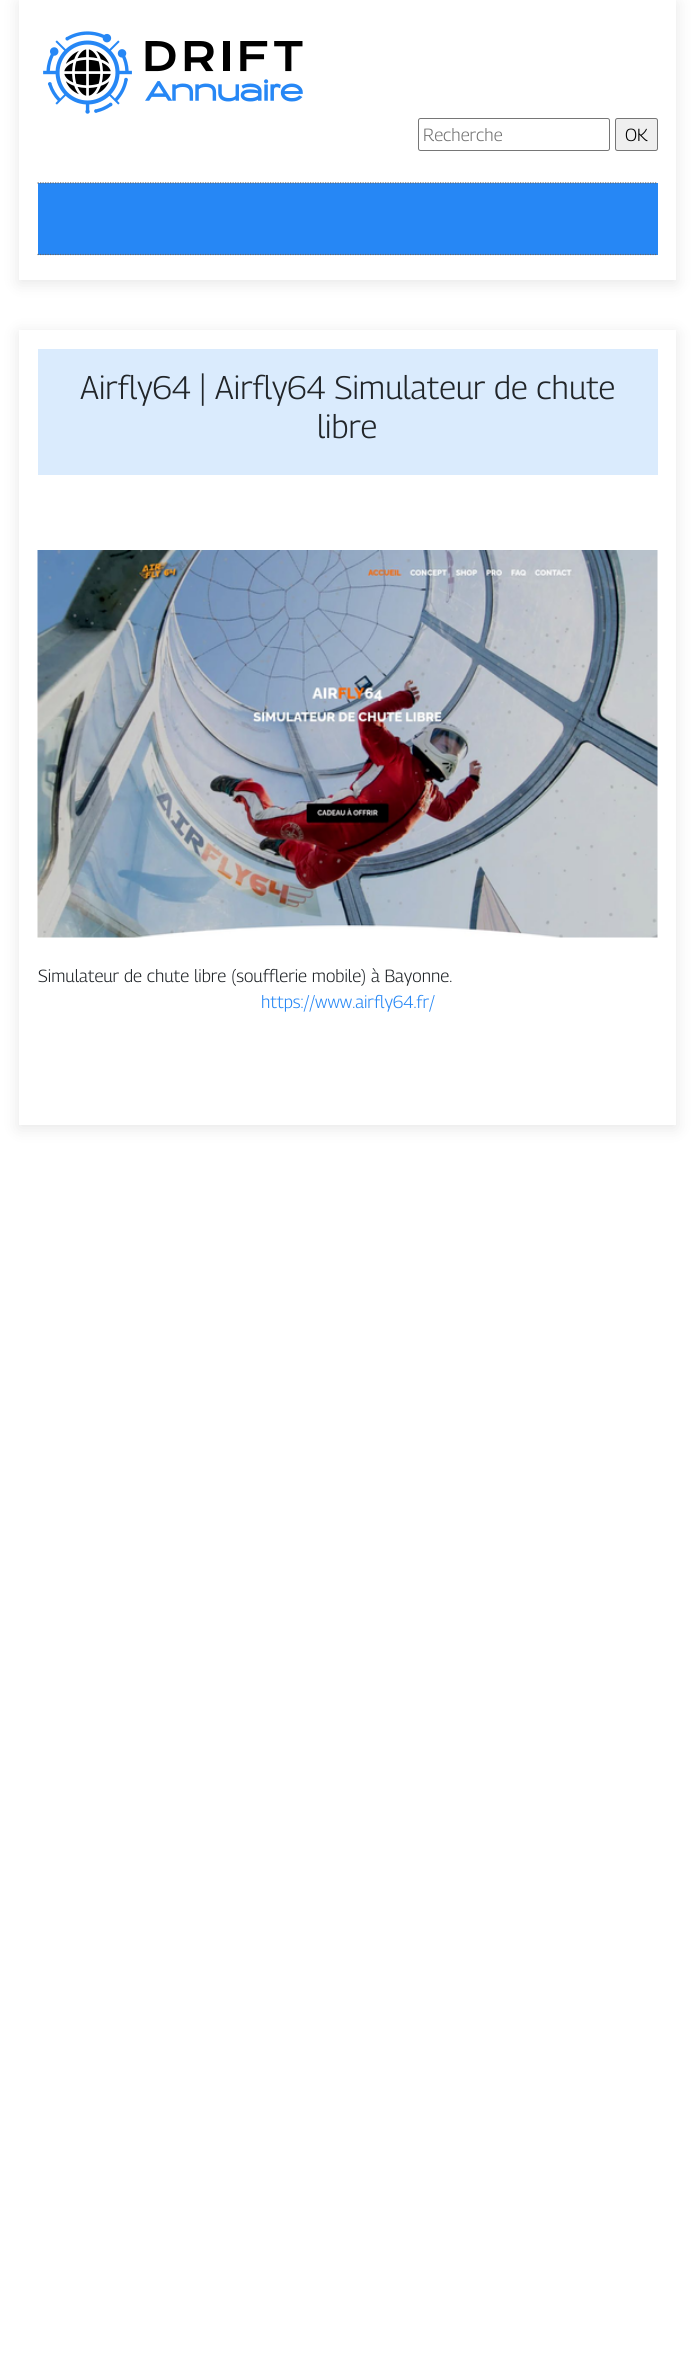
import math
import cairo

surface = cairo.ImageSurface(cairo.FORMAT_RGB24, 695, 2357)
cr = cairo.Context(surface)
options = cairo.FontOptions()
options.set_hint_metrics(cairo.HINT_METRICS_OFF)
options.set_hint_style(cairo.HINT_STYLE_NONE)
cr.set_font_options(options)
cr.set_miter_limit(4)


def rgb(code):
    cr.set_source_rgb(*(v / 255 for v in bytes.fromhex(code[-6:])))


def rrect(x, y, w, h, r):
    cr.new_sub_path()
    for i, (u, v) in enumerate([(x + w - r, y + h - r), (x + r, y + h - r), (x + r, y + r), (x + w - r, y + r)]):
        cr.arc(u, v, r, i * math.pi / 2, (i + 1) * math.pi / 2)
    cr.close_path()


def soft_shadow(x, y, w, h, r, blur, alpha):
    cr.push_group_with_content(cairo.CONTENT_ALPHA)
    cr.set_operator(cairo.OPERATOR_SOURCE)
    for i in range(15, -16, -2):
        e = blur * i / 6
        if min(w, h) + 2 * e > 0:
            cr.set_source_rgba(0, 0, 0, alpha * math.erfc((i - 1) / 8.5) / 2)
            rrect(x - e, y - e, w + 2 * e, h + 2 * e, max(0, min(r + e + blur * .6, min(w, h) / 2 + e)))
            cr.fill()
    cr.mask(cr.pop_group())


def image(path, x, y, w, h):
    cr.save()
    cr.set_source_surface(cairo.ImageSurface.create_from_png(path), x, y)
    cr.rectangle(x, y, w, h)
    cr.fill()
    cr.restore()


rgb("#ffffff")
cr.paint()
cr.save()
cr.set_fill_rule(cairo.FILL_RULE_EVEN_ODD)
cr.new_path()
cr.move_to(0, 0)
cr.line_to(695, 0)
cr.line_to(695, 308)
cr.line_to(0, 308)
cr.close_path()
cr.move_to(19, 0)
cr.line_to(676, 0)
cr.line_to(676, 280)
cr.line_to(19, 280)
cr.close_path()
cr.clip()
rgb("#000000")
soft_shadow(19, 3, 657, 280, 0, 8, 0.1)
cr.restore()
image("img/1.png", 43, 31, 260, 83)
rrect(418.5, 118.5, 191, 32, 2)
rgb("#767676")
cr.set_line_width(1)
cr.stroke()
rgb("#efefef")
rrect(615.5, 118.5, 42, 32, 2)
cr.fill_preserve()
rgb("#767676")
cr.stroke()
rgb("#2687f5")
cr.rectangle(38, 183, 620, 72)
cr.fill()
cr.new_path()
cr.move_to(37.5, 183)
cr.line_to(657.5, 183)
rgb("#666666")
cr.set_line_width(1.2)
cr.set_dash([1.25, 1.25])
cr.stroke()
cr.new_path()
cr.move_to(37.5, 254.5)
cr.line_to(657.5, 254.5)
cr.stroke()
cr.save()
cr.set_fill_rule(cairo.FILL_RULE_EVEN_ODD)
cr.new_path()
cr.move_to(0, 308)
cr.line_to(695, 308)
cr.line_to(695, 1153)
cr.line_to(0, 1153)
cr.close_path()
cr.move_to(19, 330)
cr.line_to(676, 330)
cr.line_to(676, 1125)
cr.line_to(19, 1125)
cr.close_path()
cr.clip()
rgb("#000000")
soft_shadow(19, 333, 657, 795, 0, 8, 0.1)
cr.restore()
rgb("#daebfd")
cr.rectangle(38, 349, 620, 126)
cr.fill()
image("img/2.png", 37, 550, 621, 388)
cr.select_font_face("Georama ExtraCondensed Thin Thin")
cr.set_font_size(17.5)
rgb("#757575")
cr.move_to(423, 141)
cr.show_text("Recherche")
rgb("#000000")
cr.move_to(625, 141)
cr.show_text("OK")
cr.set_font_size(32.5)
rgb("#212529")
cr.move_to(80, 399)
cr.show_text("Airfly64 | Airfly64 Simulateur de chute")
cr.move_to(317, 438)
cr.show_text("libre")
cr.set_font_size(17.5)
cr.move_to(38, 982)
cr.show_text("Simulateur de chute libre (soufflerie mobile) à Bayonne.")
rgb("#2687f5")
cr.move_to(261, 1008)
cr.show_text("https://www.airfly64.fr/")
surface.write_to_png("page.png")
